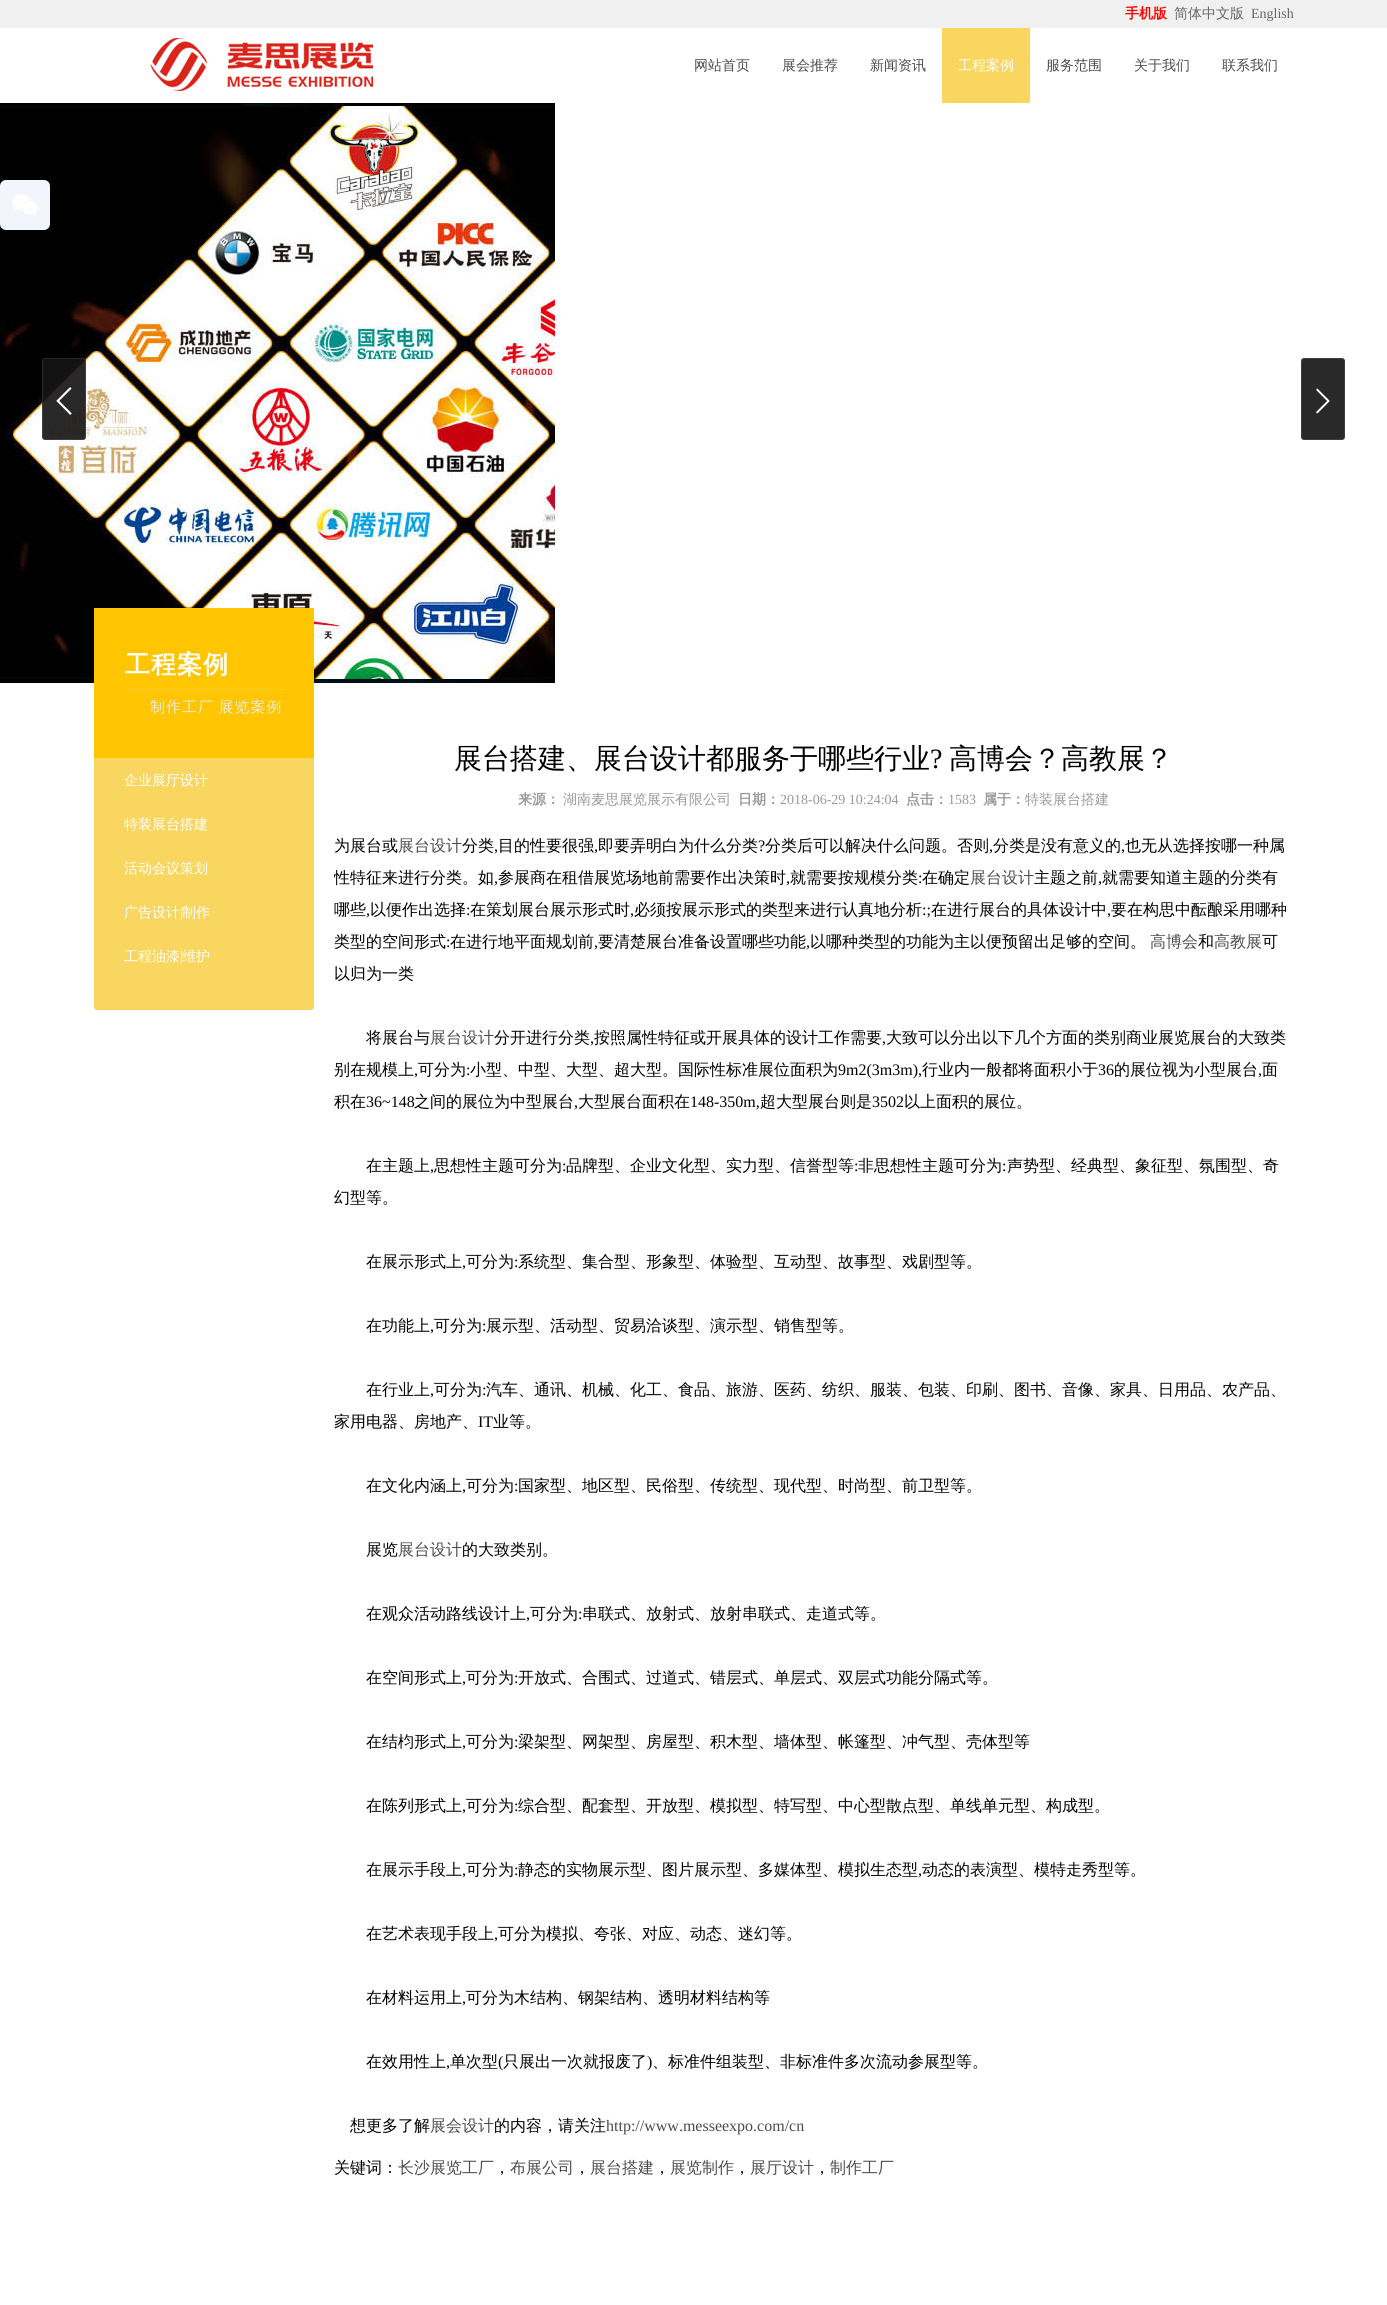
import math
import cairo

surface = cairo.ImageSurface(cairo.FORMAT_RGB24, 1387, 2305)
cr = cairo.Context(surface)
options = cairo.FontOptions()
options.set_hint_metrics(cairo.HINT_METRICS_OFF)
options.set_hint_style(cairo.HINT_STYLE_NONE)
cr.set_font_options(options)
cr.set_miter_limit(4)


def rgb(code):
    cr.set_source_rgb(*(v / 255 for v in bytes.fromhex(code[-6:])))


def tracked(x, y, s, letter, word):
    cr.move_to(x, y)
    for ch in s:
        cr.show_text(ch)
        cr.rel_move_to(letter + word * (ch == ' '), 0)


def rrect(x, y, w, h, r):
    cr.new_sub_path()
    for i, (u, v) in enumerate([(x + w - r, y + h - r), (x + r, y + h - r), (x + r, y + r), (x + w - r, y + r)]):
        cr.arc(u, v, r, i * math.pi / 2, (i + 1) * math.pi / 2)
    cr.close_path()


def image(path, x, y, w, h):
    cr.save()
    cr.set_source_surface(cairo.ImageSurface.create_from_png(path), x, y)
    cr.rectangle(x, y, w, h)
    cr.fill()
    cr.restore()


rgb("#ffffff")
cr.paint()
rgb("#f0f0f0")
cr.rectangle(0, 0, 1387, 28)
cr.fill()
image("img/1.png", 150, 38, 223, 53)
rgb("#f9d65f")
cr.rectangle(942, 28, 88, 75)
cr.fill()
image("img/2.png", 0, 103, 555, 580)
cr.set_source_rgba(0.082, 0.078, 0.078, 0.91)
rrect(42, 358, 44, 82, 3)
cr.fill()
rrect(42.5, 358.5, 43, 81, 2.5)
cr.set_source_rgba(0.945, 0.945, 0.945, 0.11)
cr.set_line_width(1)
cr.stroke()
image("img/3.png", 56, 387, 16, 28)
rgb("#2a2929")
rrect(1301, 358, 44, 82, 3)
cr.fill()
rrect(1301.5, 358.5, 43, 81, 2.5)
cr.set_source_rgba(0.945, 0.945, 0.945, 0.11)
cr.stroke()
image("img/4.png", 1316, 388, 14, 26)
rgb("#f2f5fc")
rrect(0, 180, 50, 50, 6)
cr.fill()
image("img/5.png", 12, 194, 26, 21)
rgb("#f9d65f")
cr.new_path()
cr.move_to(94, 744)
cr.line_to(314, 744)
cr.line_to(314, 1007)
cr.curve_to(314, 1008.5, 312.5, 1010, 311, 1010)
cr.line_to(97, 1010)
cr.curve_to(95.5, 1010, 94, 1008.5, 94, 1007)
cr.close_path()
cr.fill()
for x, y, w, h, color in [
    (94, 608, 220, 150, "#ffc600"),
    (125, 689, 158, 1, "#ffcf29"),
    (109, 802, 189, 1, "#f9d867"),
    (109, 846, 189, 1, "#f9d867"),
    (109, 890, 189, 1, "#f9d867"),
    (109, 934, 189, 1, "#f9d867"),
    (109, 978, 189, 1, "#f9d867"),
]:
    rgb(color)
    cr.rectangle(x, y, w, h)
    cr.fill()
cr.select_font_face("WenQuanYi Zen Hei", cairo.FONT_SLANT_NORMAL, cairo.FONT_WEIGHT_BOLD)
cr.set_font_size(14)
rgb("#ff0000")
cr.move_to(1125, 18)
cr.show_text("手机版")
cr.select_font_face("WenQuanYi Zen Hei Medium")
rgb("#666666")
cr.move_to(1174, 18)
cr.show_text("简体中文版")
cr.select_font_face("Liberation Serif")
cr.move_to(1251, 18)
cr.show_text("English")
cr.select_font_face("WenQuanYi Zen Hei Medium")
rgb("#4b4b4b")
for x, y, s in [
    (694, 70, "网站首页"),
    (782, 70, "展会推荐"),
    (870, 70, "新闻资讯"),
]:
    cr.move_to(x, y)
    cr.show_text(s)
rgb("#ffffff")
cr.move_to(958, 70)
cr.show_text("工程案例")
rgb("#4b4b4b")
for x, y, s in [
    (1046, 70, "服务范围"),
    (1134, 70, "关于我们"),
    (1222, 70, "联系我们"),
]:
    cr.move_to(x, y)
    cr.show_text(s)
cr.select_font_face("WenQuanYi Zen Hei", cairo.FONT_SLANT_NORMAL, cairo.FONT_WEIGHT_BOLD)
cr.set_font_size(25)
rgb("#ffffff")
tracked(125, 673, "工程案例", 1, 0)
cr.select_font_face("WenQuanYi Zen Hei Medium")
cr.set_font_size(15)
rgb("#eaeaea")
tracked(150, 712, "制作工厂 展览案例", 1, -1)
cr.set_font_size(14)
rgb("#ffffff")
for x, y, s in [
    (124, 785, "企业展厅设计"),
    (124, 829, "特装展台搭建"),
    (124, 873, "活动会议策划"),
    (124, 917, "广告设计"),
]:
    cr.move_to(x, y)
    cr.show_text(s)
cr.select_font_face("Liberation Serif")
cr.move_to(180, 917)
cr.show_text("|")
cr.select_font_face("WenQuanYi Zen Hei Medium")
cr.move_to(182, 917)
cr.show_text("制作")
cr.move_to(124, 961)
cr.show_text("工程油漆")
cr.select_font_face("Liberation Serif")
cr.move_to(180, 961)
cr.show_text("|")
cr.select_font_face("WenQuanYi Zen Hei Medium")
cr.move_to(182, 961)
cr.show_text("维护")
cr.set_font_size(28)
rgb("#000000")
cr.move_to(454, 768)
cr.show_text("展台搭建、展台设计都服务于哪些行业")
cr.select_font_face("Liberation Serif")
cr.move_to(930, 768)
cr.show_text("?")
cr.select_font_face("WenQuanYi Zen Hei Medium")
cr.move_to(949, 768)
cr.show_text("高博会？高教展？")
cr.select_font_face("WenQuanYi Zen Hei", cairo.FONT_SLANT_NORMAL, cairo.FONT_WEIGHT_BOLD)
cr.set_font_size(14)
rgb("#999999")
cr.move_to(518, 804)
cr.show_text("来源：")
cr.select_font_face("WenQuanYi Zen Hei Medium")
cr.move_to(563, 804)
cr.show_text("湖南麦思展览展示有限公司")
cr.select_font_face("WenQuanYi Zen Hei", cairo.FONT_SLANT_NORMAL, cairo.FONT_WEIGHT_BOLD)
cr.move_to(738, 804)
cr.show_text("日期：")
cr.select_font_face("Liberation Serif")
cr.move_to(780, 804)
cr.show_text("2018-06-29 10:24:04")
cr.select_font_face("WenQuanYi Zen Hei", cairo.FONT_SLANT_NORMAL, cairo.FONT_WEIGHT_BOLD)
cr.move_to(906, 804)
cr.show_text("点击：")
cr.select_font_face("Liberation Serif")
cr.move_to(948, 804)
cr.show_text("1583")
cr.select_font_face("WenQuanYi Zen Hei", cairo.FONT_SLANT_NORMAL, cairo.FONT_WEIGHT_BOLD)
cr.move_to(983, 804)
cr.show_text("属于：")
cr.select_font_face("WenQuanYi Zen Hei Medium")
cr.move_to(1025, 804)
cr.show_text("特装展台搭建")
cr.set_font_size(16)
rgb("#000000")
cr.move_to(334, 851)
cr.show_text("为展台或")
rgb("#4b4b4b")
cr.move_to(398, 851)
cr.show_text("展台设计")
rgb("#000000")
cr.move_to(462, 851)
cr.show_text("分类")
cr.select_font_face("Liberation Serif")
cr.move_to(494, 851)
cr.show_text(",")
cr.select_font_face("WenQuanYi Zen Hei Medium")
cr.move_to(498, 851)
cr.show_text("目的性要很强")
cr.select_font_face("Liberation Serif")
cr.move_to(594, 851)
cr.show_text(",")
cr.select_font_face("WenQuanYi Zen Hei Medium")
cr.move_to(598, 851)
cr.show_text("即要弄明白为什么分类")
cr.select_font_face("Liberation Serif")
cr.move_to(758, 851)
cr.show_text("?")
cr.select_font_face("WenQuanYi Zen Hei Medium")
cr.move_to(765, 851)
cr.show_text("分类后可以解决什么问题。否则")
cr.select_font_face("Liberation Serif")
cr.move_to(989, 851)
cr.show_text(",")
cr.select_font_face("WenQuanYi Zen Hei Medium")
cr.move_to(993, 851)
cr.show_text("分类是没有意义的")
cr.select_font_face("Liberation Serif")
cr.move_to(1121, 851)
cr.show_text(",")
cr.select_font_face("WenQuanYi Zen Hei Medium")
cr.move_to(1125, 851)
cr.show_text("也无从选择按哪一种属")
cr.save()
cr.rectangle(334, 728, 960, 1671)
cr.clip()
cr.move_to(334, 883)
cr.show_text("性特征来进行分类。如")
cr.restore()
cr.select_font_face("Liberation Serif")
cr.move_to(494, 883)
cr.show_text(",")
cr.select_font_face("WenQuanYi Zen Hei Medium")
cr.move_to(498, 883)
cr.show_text("参展商在租借展览场地前需要作出决策时")
cr.select_font_face("Liberation Serif")
cr.move_to(786, 883)
cr.show_text(",")
cr.select_font_face("WenQuanYi Zen Hei Medium")
cr.move_to(790, 883)
cr.show_text("就需要按规模分类")
cr.select_font_face("Liberation Serif")
cr.move_to(918, 883)
cr.show_text(":")
cr.select_font_face("WenQuanYi Zen Hei Medium")
cr.move_to(922, 883)
cr.show_text("在确定")
rgb("#4b4b4b")
cr.move_to(970, 883)
cr.show_text("展台设计")
rgb("#000000")
cr.move_to(1034, 883)
cr.show_text("主题之前")
cr.select_font_face("Liberation Serif")
cr.move_to(1098, 883)
cr.show_text(",")
cr.select_font_face("WenQuanYi Zen Hei Medium")
cr.move_to(1102, 883)
cr.show_text("就需要知道主题的分类有")
cr.move_to(334, 915)
cr.show_text("哪些")
cr.select_font_face("Liberation Serif")
cr.move_to(366, 915)
cr.show_text(",")
cr.select_font_face("WenQuanYi Zen Hei Medium")
cr.move_to(370, 915)
cr.show_text("以便作出选择")
cr.select_font_face("Liberation Serif")
cr.move_to(466, 915)
cr.show_text(":")
cr.select_font_face("WenQuanYi Zen Hei Medium")
cr.move_to(470, 915)
cr.show_text("在策划展台展示形式时")
cr.select_font_face("Liberation Serif")
cr.move_to(630, 915)
cr.show_text(",")
cr.select_font_face("WenQuanYi Zen Hei Medium")
cr.move_to(634, 915)
cr.show_text("必须按展示形式的类型来进行认真地分析")
cr.select_font_face("Liberation Serif")
cr.move_to(922, 915)
cr.show_text(":;")
cr.select_font_face("WenQuanYi Zen Hei Medium")
cr.move_to(931, 915)
cr.show_text("在进行展台的具体设计中")
cr.select_font_face("Liberation Serif")
cr.move_to(1107, 915)
cr.show_text(",")
cr.select_font_face("WenQuanYi Zen Hei Medium")
cr.move_to(1111, 915)
cr.show_text("要在构思中酝酿采用哪种")
cr.move_to(334, 947)
cr.show_text("类型的空间形式")
cr.select_font_face("Liberation Serif")
cr.move_to(446, 947)
cr.show_text(":")
cr.select_font_face("WenQuanYi Zen Hei Medium")
cr.move_to(450, 947)
cr.show_text("在进行地平面规划前")
cr.select_font_face("Liberation Serif")
cr.move_to(594, 947)
cr.show_text(",")
cr.select_font_face("WenQuanYi Zen Hei Medium")
cr.move_to(598, 947)
cr.show_text("要清楚展台准备设置哪些功能")
cr.select_font_face("Liberation Serif")
cr.move_to(806, 947)
cr.show_text(",")
cr.select_font_face("WenQuanYi Zen Hei Medium")
cr.move_to(810, 947)
cr.show_text("以哪种类型的功能为主以便预留出足够的空间。")
rgb("#4b4b4b")
cr.move_to(1150, 947)
cr.show_text("高博会")
rgb("#000000")
cr.move_to(1198, 947)
cr.show_text("和")
rgb("#4b4b4b")
cr.move_to(1214, 947)
cr.show_text("高教展")
rgb("#000000")
for x, y, s in [
    (1262, 947, "可"),
    (334, 979, "以归为一类"),
    (366, 1043, "将展台与"),
]:
    cr.move_to(x, y)
    cr.show_text(s)
rgb("#4b4b4b")
cr.move_to(430, 1043)
cr.show_text("展台设计")
rgb("#000000")
cr.move_to(494, 1043)
cr.show_text("分开进行分类")
cr.select_font_face("Liberation Serif")
cr.move_to(590, 1043)
cr.show_text(",")
cr.select_font_face("WenQuanYi Zen Hei Medium")
cr.move_to(594, 1043)
cr.show_text("按照属性特征或开展具体的设计工作需要")
cr.select_font_face("Liberation Serif")
cr.move_to(882, 1043)
cr.show_text(",")
cr.select_font_face("WenQuanYi Zen Hei Medium")
cr.move_to(886, 1043)
cr.show_text("大致可以分出以下几个方面的类别商业展览展台的大致类")
cr.move_to(334, 1075)
cr.show_text("别在规模上")
cr.select_font_face("Liberation Serif")
cr.move_to(414, 1075)
cr.show_text(",")
cr.select_font_face("WenQuanYi Zen Hei Medium")
cr.move_to(418, 1075)
cr.show_text("可分为")
cr.select_font_face("Liberation Serif")
cr.move_to(466, 1075)
cr.show_text(":")
cr.select_font_face("WenQuanYi Zen Hei Medium")
cr.move_to(470, 1075)
cr.show_text("小型、中型、大型、超大型。国际性标准展位面积为")
cr.select_font_face("Liberation Serif")
cr.move_to(838, 1075)
cr.show_text("9m2(3m3m),")
cr.select_font_face("WenQuanYi Zen Hei Medium")
cr.move_to(922, 1075)
cr.show_text("行业内一般都将面积小于")
cr.select_font_face("Liberation Serif")
cr.move_to(1098, 1075)
cr.show_text("36")
cr.select_font_face("WenQuanYi Zen Hei Medium")
cr.move_to(1114, 1075)
cr.show_text("的展位视为小型展台")
cr.select_font_face("Liberation Serif")
cr.move_to(1258, 1075)
cr.show_text(",")
cr.select_font_face("WenQuanYi Zen Hei Medium")
cr.move_to(1262, 1075)
cr.show_text("面")
cr.move_to(334, 1107)
cr.show_text("积在")
cr.select_font_face("Liberation Serif")
cr.move_to(366, 1107)
cr.show_text("36~148")
cr.select_font_face("WenQuanYi Zen Hei Medium")
cr.move_to(414, 1107)
cr.show_text("之间的展位为中型展台")
cr.select_font_face("Liberation Serif")
cr.move_to(574, 1107)
cr.show_text(",")
cr.select_font_face("WenQuanYi Zen Hei Medium")
cr.move_to(578, 1107)
cr.show_text("大型展台面积在")
cr.select_font_face("Liberation Serif")
cr.move_to(690, 1107)
cr.show_text("148-350m,")
cr.select_font_face("WenQuanYi Zen Hei Medium")
cr.move_to(760, 1107)
cr.show_text("超大型展台则是")
cr.select_font_face("Liberation Serif")
cr.move_to(872, 1107)
cr.show_text("3502")
cr.select_font_face("WenQuanYi Zen Hei Medium")
cr.move_to(904, 1107)
cr.show_text("以上面积的展位。")
cr.move_to(366, 1171)
cr.show_text("在主题上")
cr.select_font_face("Liberation Serif")
cr.move_to(430, 1171)
cr.show_text(",")
cr.select_font_face("WenQuanYi Zen Hei Medium")
cr.move_to(434, 1171)
cr.show_text("思想性主题可分为")
cr.select_font_face("Liberation Serif")
cr.move_to(562, 1171)
cr.show_text(":")
cr.select_font_face("WenQuanYi Zen Hei Medium")
cr.move_to(566, 1171)
cr.show_text("品牌型、企业文化型、实力型、信誉型等")
cr.select_font_face("Liberation Serif")
cr.move_to(854, 1171)
cr.show_text(":")
cr.select_font_face("WenQuanYi Zen Hei Medium")
cr.move_to(858, 1171)
cr.show_text("非思想性主题可分为")
cr.select_font_face("Liberation Serif")
cr.move_to(1002, 1171)
cr.show_text(":")
cr.select_font_face("WenQuanYi Zen Hei Medium")
for x, y, s in [
    (1007, 1171, "声势型、经典型、象征型、氛围型、奇"),
    (334, 1203, "幻型等。"),
    (366, 1267, "在展示形式上"),
]:
    cr.move_to(x, y)
    cr.show_text(s)
cr.select_font_face("Liberation Serif")
cr.move_to(462, 1267)
cr.show_text(",")
cr.select_font_face("WenQuanYi Zen Hei Medium")
cr.move_to(466, 1267)
cr.show_text("可分为")
cr.select_font_face("Liberation Serif")
cr.move_to(514, 1267)
cr.show_text(":")
cr.select_font_face("WenQuanYi Zen Hei Medium")
cr.move_to(518, 1267)
cr.show_text("系统型、集合型、形象型、体验型、互动型、故事型、戏剧型等。")
cr.move_to(366, 1331)
cr.show_text("在功能上")
cr.select_font_face("Liberation Serif")
cr.move_to(430, 1331)
cr.show_text(",")
cr.select_font_face("WenQuanYi Zen Hei Medium")
cr.move_to(434, 1331)
cr.show_text("可分为")
cr.select_font_face("Liberation Serif")
cr.move_to(482, 1331)
cr.show_text(":")
cr.select_font_face("WenQuanYi Zen Hei Medium")
cr.move_to(486, 1331)
cr.show_text("展示型、活动型、贸易洽谈型、演示型、销售型等。")
cr.move_to(366, 1395)
cr.show_text("在行业上")
cr.select_font_face("Liberation Serif")
cr.move_to(430, 1395)
cr.show_text(",")
cr.select_font_face("WenQuanYi Zen Hei Medium")
cr.move_to(434, 1395)
cr.show_text("可分为")
cr.select_font_face("Liberation Serif")
cr.move_to(482, 1395)
cr.show_text(":")
cr.select_font_face("WenQuanYi Zen Hei Medium")
cr.move_to(486, 1395)
cr.show_text("汽车、通讯、机械、化工、食品、旅游、医药、纺织、服装、包装、印刷、图书、音像、家具、日用品、农产品、")
cr.move_to(334, 1427)
cr.show_text("家用电器、房地产、")
cr.select_font_face("Liberation Serif")
cr.move_to(478, 1427)
cr.show_text("IT")
cr.select_font_face("WenQuanYi Zen Hei Medium")
cr.move_to(493, 1427)
cr.show_text("业等。")
cr.move_to(366, 1491)
cr.show_text("在文化内涵上")
cr.select_font_face("Liberation Serif")
cr.move_to(462, 1491)
cr.show_text(",")
cr.select_font_face("WenQuanYi Zen Hei Medium")
cr.move_to(466, 1491)
cr.show_text("可分为")
cr.select_font_face("Liberation Serif")
cr.move_to(514, 1491)
cr.show_text(":")
cr.select_font_face("WenQuanYi Zen Hei Medium")
cr.move_to(518, 1491)
cr.show_text("国家型、地区型、民俗型、传统型、现代型、时尚型、前卫型等。")
cr.move_to(366, 1555)
cr.show_text("展览")
rgb("#4b4b4b")
cr.move_to(398, 1555)
cr.show_text("展台设计")
rgb("#000000")
cr.move_to(462, 1555)
cr.show_text("的大致类别。")
cr.move_to(366, 1619)
cr.show_text("在观众活动路线设计上")
cr.select_font_face("Liberation Serif")
cr.move_to(526, 1619)
cr.show_text(",")
cr.select_font_face("WenQuanYi Zen Hei Medium")
cr.move_to(530, 1619)
cr.show_text("可分为")
cr.select_font_face("Liberation Serif")
cr.move_to(578, 1619)
cr.show_text(":")
cr.select_font_face("WenQuanYi Zen Hei Medium")
cr.move_to(582, 1619)
cr.show_text("串联式、放射式、放射串联式、走道式等。")
cr.move_to(366, 1683)
cr.show_text("在空间形式上")
cr.select_font_face("Liberation Serif")
cr.move_to(462, 1683)
cr.show_text(",")
cr.select_font_face("WenQuanYi Zen Hei Medium")
cr.move_to(466, 1683)
cr.show_text("可分为")
cr.select_font_face("Liberation Serif")
cr.move_to(514, 1683)
cr.show_text(":")
cr.select_font_face("WenQuanYi Zen Hei Medium")
cr.move_to(518, 1683)
cr.show_text("开放式、合围式、过道式、错层式、单层式、双层式功能分隔式等。")
cr.move_to(366, 1747)
cr.show_text("在结枃形式上")
cr.select_font_face("Liberation Serif")
cr.move_to(462, 1747)
cr.show_text(",")
cr.select_font_face("WenQuanYi Zen Hei Medium")
cr.move_to(466, 1747)
cr.show_text("可分为")
cr.select_font_face("Liberation Serif")
cr.move_to(514, 1747)
cr.show_text(":")
cr.select_font_face("WenQuanYi Zen Hei Medium")
cr.move_to(518, 1747)
cr.show_text("梁架型、网架型、房屋型、积木型、墙体型、帐篷型、冲气型、壳体型等")
cr.move_to(366, 1811)
cr.show_text("在陈列形式上")
cr.select_font_face("Liberation Serif")
cr.move_to(462, 1811)
cr.show_text(",")
cr.select_font_face("WenQuanYi Zen Hei Medium")
cr.move_to(466, 1811)
cr.show_text("可分为")
cr.select_font_face("Liberation Serif")
cr.move_to(514, 1811)
cr.show_text(":")
cr.select_font_face("WenQuanYi Zen Hei Medium")
cr.move_to(518, 1811)
cr.show_text("综合型、配套型、开放型、模拟型、特写型、中心型散点型、单线单元型、构成型。")
cr.move_to(366, 1875)
cr.show_text("在展示手段上")
cr.select_font_face("Liberation Serif")
cr.move_to(462, 1875)
cr.show_text(",")
cr.select_font_face("WenQuanYi Zen Hei Medium")
cr.move_to(466, 1875)
cr.show_text("可分为")
cr.select_font_face("Liberation Serif")
cr.move_to(514, 1875)
cr.show_text(":")
cr.select_font_face("WenQuanYi Zen Hei Medium")
cr.move_to(518, 1875)
cr.show_text("静态的实物展示型、图片展示型、多媒体型、模拟生态型")
cr.select_font_face("Liberation Serif")
cr.move_to(918, 1875)
cr.show_text(",")
cr.select_font_face("WenQuanYi Zen Hei Medium")
cr.move_to(922, 1875)
cr.show_text("动态的表演型、模特走秀型等。")
cr.move_to(366, 1939)
cr.show_text("在艺术表现手段上")
cr.select_font_face("Liberation Serif")
cr.move_to(494, 1939)
cr.show_text(",")
cr.select_font_face("WenQuanYi Zen Hei Medium")
cr.move_to(498, 1939)
cr.show_text("可分为模拟、夸张、对应、动态、迷幻等。")
cr.move_to(366, 2003)
cr.show_text("在材料运用上")
cr.select_font_face("Liberation Serif")
cr.move_to(462, 2003)
cr.show_text(",")
cr.select_font_face("WenQuanYi Zen Hei Medium")
cr.move_to(466, 2003)
cr.show_text("可分为木结构、钢架结构、透明材料结构等")
cr.move_to(366, 2067)
cr.show_text("在效用性上")
cr.select_font_face("Liberation Serif")
cr.move_to(446, 2067)
cr.show_text(",")
cr.select_font_face("WenQuanYi Zen Hei Medium")
cr.move_to(450, 2067)
cr.show_text("单次型")
cr.select_font_face("Liberation Serif")
cr.move_to(498, 2067)
cr.show_text("(")
cr.select_font_face("WenQuanYi Zen Hei Medium")
cr.move_to(503, 2067)
cr.show_text("只展出一次就报废了")
cr.select_font_face("Liberation Serif")
cr.move_to(647, 2067)
cr.show_text(")")
cr.select_font_face("WenQuanYi Zen Hei Medium")
cr.move_to(652, 2067)
cr.show_text("、标准件组装型、非标准件多次流动参展型等。")
cr.move_to(350, 2131)
cr.show_text("想更多了解")
rgb("#4b4b4b")
cr.move_to(430, 2131)
cr.show_text("展会设计")
rgb("#000000")
cr.move_to(494, 2131)
cr.show_text("的内容，请关注")
cr.select_font_face("Liberation Serif")
rgb("#4b4b4b")
cr.move_to(606, 2131)
cr.show_text("http://www.messeexpo.com/cn")
cr.select_font_face("WenQuanYi Zen Hei Medium")
rgb("#000000")
cr.move_to(334, 2173)
cr.show_text("关键词：")
rgb("#4b4b4b")
cr.move_to(398, 2173)
cr.show_text("长沙展览工厂")
rgb("#000000")
cr.move_to(494, 2173)
cr.show_text("，")
rgb("#4b4b4b")
cr.move_to(510, 2173)
cr.show_text("布展公司")
rgb("#000000")
cr.move_to(574, 2173)
cr.show_text("，")
rgb("#4b4b4b")
cr.move_to(590, 2173)
cr.show_text("展台搭建")
rgb("#000000")
cr.move_to(654, 2173)
cr.show_text("，")
rgb("#4b4b4b")
cr.move_to(670, 2173)
cr.show_text("展览制作")
rgb("#000000")
cr.move_to(734, 2173)
cr.show_text("，")
rgb("#4b4b4b")
cr.move_to(750, 2173)
cr.show_text("展厅设计")
rgb("#000000")
cr.move_to(814, 2173)
cr.show_text("，")
rgb("#4b4b4b")
cr.move_to(830, 2173)
cr.show_text("制作工厂")
surface.write_to_png("page.png")
